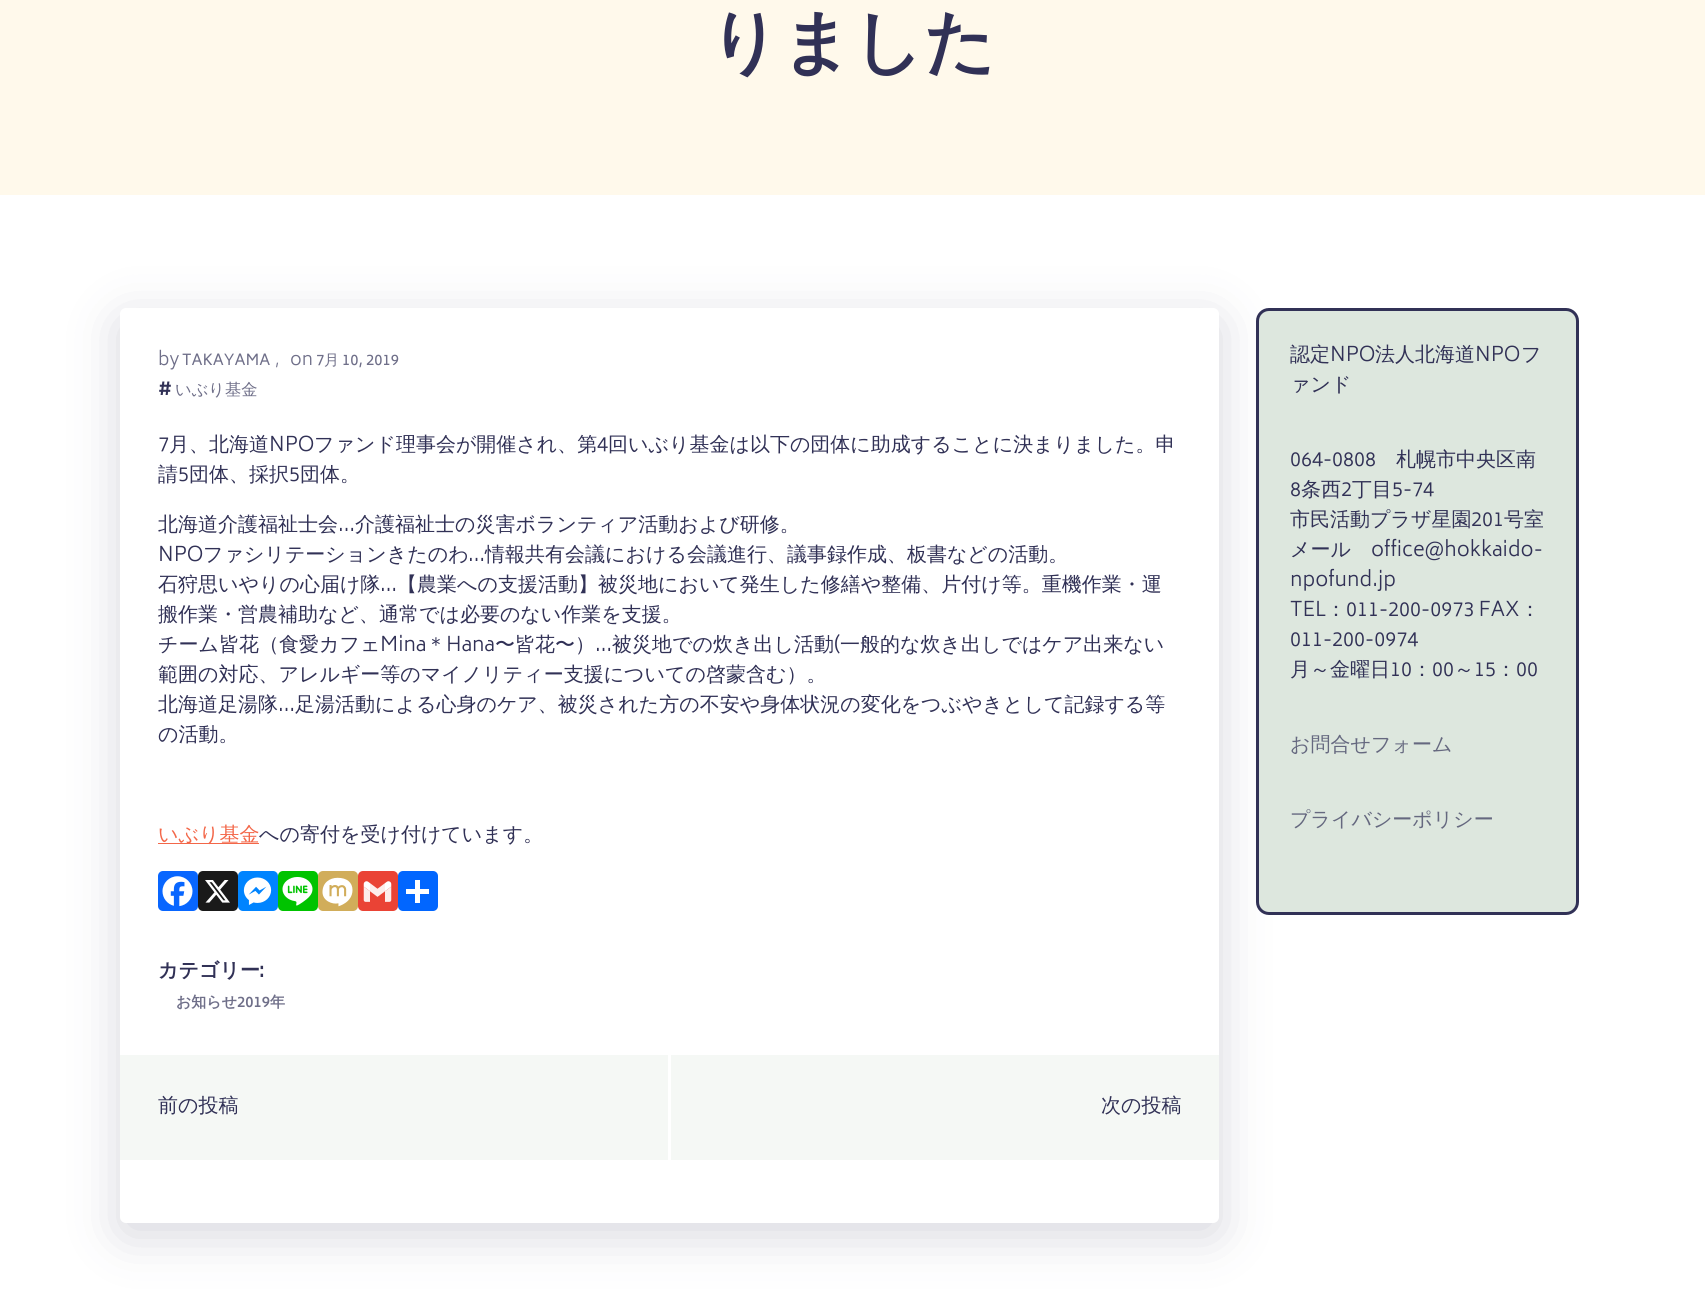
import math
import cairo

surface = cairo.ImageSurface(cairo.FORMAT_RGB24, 1705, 1316)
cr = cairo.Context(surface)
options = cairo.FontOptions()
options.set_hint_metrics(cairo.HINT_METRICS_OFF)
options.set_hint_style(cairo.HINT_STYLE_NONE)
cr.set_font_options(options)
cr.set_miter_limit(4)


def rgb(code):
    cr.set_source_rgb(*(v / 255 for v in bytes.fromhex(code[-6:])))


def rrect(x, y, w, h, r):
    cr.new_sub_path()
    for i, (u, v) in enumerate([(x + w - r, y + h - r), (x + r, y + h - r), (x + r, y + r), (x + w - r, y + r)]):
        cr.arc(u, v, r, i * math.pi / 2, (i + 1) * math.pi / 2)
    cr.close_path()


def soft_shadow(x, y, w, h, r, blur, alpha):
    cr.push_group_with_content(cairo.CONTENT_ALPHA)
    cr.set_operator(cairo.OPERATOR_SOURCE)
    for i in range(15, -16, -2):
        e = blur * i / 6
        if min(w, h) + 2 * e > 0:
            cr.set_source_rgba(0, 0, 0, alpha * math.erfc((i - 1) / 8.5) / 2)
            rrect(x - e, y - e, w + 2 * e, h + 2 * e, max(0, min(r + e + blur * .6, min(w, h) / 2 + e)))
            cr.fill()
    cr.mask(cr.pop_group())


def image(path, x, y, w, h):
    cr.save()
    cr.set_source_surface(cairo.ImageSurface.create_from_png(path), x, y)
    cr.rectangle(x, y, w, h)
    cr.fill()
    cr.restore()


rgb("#ffffff")
cr.paint()
rgb("#fff9eb")
cr.rectangle(0, 0, 1705, 195)
cr.fill()
rgb("#313156")
soft_shadow(120, 320, 1099, 915, 6, 25, 0.2)
rgb("#ffffff")
rrect(120, 308, 1099, 915, 6)
cr.fill()
rgb("#f36749")
cr.rectangle(158, 843, 101, 1)
cr.fill()
rgb("#0866ff")
rrect(158, 871, 40, 40, 5)
cr.fill()
image("img/1.png", 162, 876, 31, 31)
rgb("#1a1a1a")
rrect(198, 871, 40, 40, 5)
cr.fill()
image("img/2.png", 205, 880, 25, 23)
rgb("#0084ff")
rrect(238, 871, 40, 40, 5)
cr.fill()
image("img/3.png", 243, 877, 29, 28)
rgb("#00c300")
rrect(278, 871, 40, 40, 5)
cr.fill()
image("img/4.png", 282, 877, 31, 29)
rgb("#d1ad5a")
rrect(318, 871, 40, 40, 5)
cr.fill()
image("img/5.png", 322, 877, 31, 30)
rgb("#ea4335")
rrect(358, 871, 40, 40, 5)
cr.fill()
image("img/6.png", 363, 881, 29, 21)
rgb("#0166ff")
rrect(398, 871, 40, 40, 5)
cr.fill()
for x, y, w, h, color in [
    (415, 880, 5, 23, "#ffffff"),
    (406, 889, 23, 5, "#ffffff"),
    (120, 1055, 1099, 105, "#f5f8f5"),
    (668, 1055, 3, 105, "#ffffff"),
]:
    rgb(color)
    cr.rectangle(x, y, w, h)
    cr.fill()
rgb("#dde7de")
rrect(1257.5, 309.5, 320, 604, 11.5)
cr.fill_preserve()
rgb("#313156")
cr.set_line_width(3)
cr.stroke()
cr.select_font_face("WenQuanYi Zen Hei", cairo.FONT_SLANT_NORMAL, cairo.FONT_WEIGHT_BOLD)
cr.set_font_size(70)
cr.move_to(709, 66)
cr.show_text("りました")
cr.select_font_face("Biryani Light")
cr.set_font_size(18)
rgb("#6f6f89")
cr.move_to(158, 365)
cr.show_text("by")
cr.select_font_face("Biryani")
cr.set_font_size(15)
cr.move_to(182, 365)
cr.show_text("TAKAYAMA")
cr.select_font_face("Biryani Light")
cr.move_to(275, 365)
cr.show_text(",")
cr.set_font_size(18)
cr.move_to(290, 365)
cr.show_text("on")
cr.select_font_face("Biryani")
cr.set_font_size(15)
cr.move_to(316, 365)
cr.show_text("7")
cr.select_font_face("WenQuanYi Zen Hei Medium")
cr.move_to(324, 365)
cr.show_text("月")
cr.select_font_face("Biryani")
cr.move_to(342, 365)
cr.show_text("10, 2019")
cr.select_font_face("Biryani SemiBold")
cr.set_font_size(20)
rgb("#313156")
cr.move_to(158, 395)
cr.show_text("#")
cr.select_font_face("WenQuanYi Zen Hei Medium")
cr.set_font_size(16.25)
rgb("#6f6f89")
cr.move_to(175, 395)
cr.show_text("いぶり基金")
cr.select_font_face("Biryani Light")
cr.set_font_size(20)
rgb("#313156")
cr.move_to(158, 451)
cr.show_text("7")
cr.select_font_face("WenQuanYi Zen Hei Medium")
cr.move_to(169, 451)
cr.show_text("月、北海道")
cr.select_font_face("Biryani Light")
cr.move_to(269, 451)
cr.show_text("NPO")
cr.select_font_face("WenQuanYi Zen Hei Medium")
cr.move_to(314, 451)
cr.show_text("ファンド理事会が開催され、第")
cr.select_font_face("Biryani Light")
cr.move_to(597, 451)
cr.show_text("4")
cr.select_font_face("WenQuanYi Zen Hei Medium")
cr.move_to(608, 451)
cr.show_text("回いぶり基金は以下の団体に助成することに決まりました。申")
cr.move_to(158, 481)
cr.show_text("請")
cr.select_font_face("Biryani Light")
cr.move_to(178, 481)
cr.show_text("5")
cr.select_font_face("WenQuanYi Zen Hei Medium")
cr.move_to(189, 481)
cr.show_text("団体、採択")
cr.select_font_face("Biryani Light")
cr.move_to(289, 481)
cr.show_text("5")
cr.select_font_face("WenQuanYi Zen Hei Medium")
cr.move_to(300, 481)
cr.show_text("団体。")
cr.move_to(158, 531)
cr.show_text("北海道介護福祉士会")
cr.select_font_face("Biryani Light")
cr.move_to(338, 531)
cr.show_text("…")
cr.select_font_face("WenQuanYi Zen Hei Medium")
cr.move_to(355, 531)
cr.show_text("介護福祉士の災害ボランティア活動および研修。")
cr.select_font_face("Biryani Light")
cr.move_to(158, 561)
cr.show_text("NPO")
cr.select_font_face("WenQuanYi Zen Hei Medium")
cr.move_to(203, 561)
cr.show_text("ファシリテーションきたのわ")
cr.select_font_face("Biryani Light")
cr.move_to(468, 561)
cr.show_text("…")
cr.select_font_face("WenQuanYi Zen Hei Medium")
cr.move_to(485, 561)
cr.show_text("情報共有会議における会議進行、議事録作成、板書などの活動。")
cr.move_to(158, 591)
cr.show_text("石狩思いやりの心届け隊")
cr.select_font_face("Biryani Light")
cr.move_to(380, 591)
cr.show_text("…")
cr.select_font_face("WenQuanYi Zen Hei Medium")
for x, y, s in [
    (397, 591, "【農業への支援活動】被災地において発生した修繕や整備、片付け等。重機作業・運"),
    (158, 621, "搬作業・営農補助など、通常では必要のない作業を支援。"),
    (158, 651, "チーム皆花（食愛カフェ"),
]:
    cr.move_to(x, y)
    cr.show_text(s)
cr.select_font_face("Biryani Light")
cr.move_to(380, 651)
cr.show_text("Mina")
cr.select_font_face("WenQuanYi Zen Hei Medium")
cr.move_to(426, 651)
cr.show_text("＊")
cr.select_font_face("Biryani Light")
cr.move_to(446, 651)
cr.show_text("Hana")
cr.select_font_face("WenQuanYi Zen Hei Medium")
cr.move_to(495, 651)
cr.show_text("〜皆花〜）")
cr.move_to(612, 651)
cr.show_text("被災地での炊き出し活動")
cr.select_font_face("Biryani Light")
cr.move_to(834, 651)
cr.show_text("(")
cr.select_font_face("WenQuanYi Zen Hei Medium")
cr.move_to(840, 651)
cr.show_text("一般的な炊き出しではケア出来ない")
cr.select_font_face("Biryani Light")
cr.move_to(595, 651)
cr.show_text("…")
cr.select_font_face("WenQuanYi Zen Hei Medium")
cr.move_to(158, 681)
cr.show_text("範囲の対応、アレルギー等のマイノリティー支援についての啓蒙含む）。")
cr.move_to(158, 711)
cr.show_text("北海道足湯隊")
cr.select_font_face("Biryani Light")
cr.move_to(278, 711)
cr.show_text("…")
cr.select_font_face("WenQuanYi Zen Hei Medium")
cr.move_to(295, 711)
cr.show_text("足湯活動による心身のケア、被災された方の不安や身体状況の変化をつぶやきとして記録する等")
cr.move_to(158, 741)
cr.show_text("の活動。")
rgb("#f36749")
cr.move_to(158, 841)
cr.show_text("いぶり基金")
rgb("#313156")
cr.move_to(259, 841)
cr.show_text("への寄付を受け付けています。")
cr.select_font_face("WenQuanYi Zen Hei", cairo.FONT_SLANT_NORMAL, cairo.FONT_WEIGHT_BOLD)
cr.move_to(158, 977)
cr.show_text("カテゴリー")
cr.select_font_face("Biryani SemiBold")
cr.move_to(259, 977)
cr.show_text(":")
cr.select_font_face("WenQuanYi Zen Hei", cairo.FONT_SLANT_NORMAL, cairo.FONT_WEIGHT_BOLD)
cr.set_font_size(15)
rgb("#6f6f89")
cr.move_to(176, 1007)
cr.show_text("お知らせ")
cr.select_font_face("Biryani SemiBold")
cr.move_to(237, 1007)
cr.show_text("2019")
cr.select_font_face("WenQuanYi Zen Hei", cairo.FONT_SLANT_NORMAL, cairo.FONT_WEIGHT_BOLD)
cr.move_to(270, 1007)
cr.show_text("年")
cr.select_font_face("WenQuanYi Zen Hei Medium")
cr.set_font_size(20)
rgb("#313156")
for x, y, s in [
    (158, 1112, "前の投稿"),
    (1101, 1112, "次の投稿"),
    (1290, 361, "認定"),
]:
    cr.move_to(x, y)
    cr.show_text(s)
cr.select_font_face("Biryani Light")
cr.move_to(1330, 361)
cr.show_text("NPO")
cr.select_font_face("WenQuanYi Zen Hei Medium")
cr.move_to(1375, 361)
cr.show_text("法人北海道")
cr.select_font_face("Biryani Light")
cr.move_to(1475, 361)
cr.show_text("NPO")
cr.select_font_face("WenQuanYi Zen Hei Medium")
cr.move_to(1521, 361)
cr.show_text("フ")
cr.move_to(1290, 391)
cr.show_text("ァンド")
cr.select_font_face("Biryani Light")
cr.move_to(1290, 466)
cr.show_text("064-0808")
cr.select_font_face("WenQuanYi Zen Hei Medium")
cr.move_to(1396, 466)
cr.show_text("札幌市中央区南")
cr.select_font_face("Biryani Light")
cr.move_to(1290, 496)
cr.show_text("8")
cr.select_font_face("WenQuanYi Zen Hei Medium")
cr.move_to(1301, 496)
cr.show_text("条西")
cr.select_font_face("Biryani Light")
cr.move_to(1341, 496)
cr.show_text("2")
cr.select_font_face("WenQuanYi Zen Hei Medium")
cr.move_to(1352, 496)
cr.show_text("丁目")
cr.select_font_face("Biryani Light")
cr.move_to(1392, 496)
cr.show_text("5-74")
cr.select_font_face("WenQuanYi Zen Hei Medium")
cr.move_to(1290, 526)
cr.show_text("市民活動プラザ星園")
cr.select_font_face("Biryani Light")
cr.move_to(1471, 526)
cr.show_text("201")
cr.select_font_face("WenQuanYi Zen Hei Medium")
cr.move_to(1504, 526)
cr.show_text("号室")
cr.move_to(1290, 556)
cr.show_text("メール")
cr.select_font_face("Biryani Light")
for x, y, s in [
    (1371, 556, "office@hokkaido-"),
    (1290, 586, "npofund.jp"),
    (1290, 616, "TEL"),
]:
    cr.move_to(x, y)
    cr.show_text(s)
cr.select_font_face("WenQuanYi Zen Hei Medium")
cr.move_to(1326, 616)
cr.show_text("：")
cr.select_font_face("Biryani Light")
cr.move_to(1346, 616)
cr.show_text("011-200-0973 FAX")
cr.select_font_face("WenQuanYi Zen Hei Medium")
cr.move_to(1520, 616)
cr.show_text("：")
cr.select_font_face("Biryani Light")
cr.move_to(1290, 646)
cr.show_text("011-200-0974")
cr.select_font_face("WenQuanYi Zen Hei Medium")
cr.move_to(1290, 676)
cr.show_text("月～金曜日")
cr.select_font_face("Biryani Light")
cr.move_to(1390, 676)
cr.show_text("10")
cr.select_font_face("WenQuanYi Zen Hei Medium")
cr.move_to(1412, 676)
cr.show_text("：")
cr.select_font_face("Biryani Light")
cr.move_to(1432, 676)
cr.show_text("00")
cr.select_font_face("WenQuanYi Zen Hei Medium")
cr.move_to(1454, 676)
cr.show_text("～")
cr.select_font_face("Biryani Light")
cr.move_to(1474, 676)
cr.show_text("15")
cr.select_font_face("WenQuanYi Zen Hei Medium")
cr.move_to(1496, 676)
cr.show_text("：")
cr.select_font_face("Biryani Light")
cr.move_to(1516, 676)
cr.show_text("00")
cr.select_font_face("WenQuanYi Zen Hei Medium")
rgb("#65687f")
cr.move_to(1290, 751)
cr.show_text("お問合せフォーム")
cr.move_to(1290, 826)
cr.show_text("プライバシーポリシー")
surface.write_to_png("page.png")
